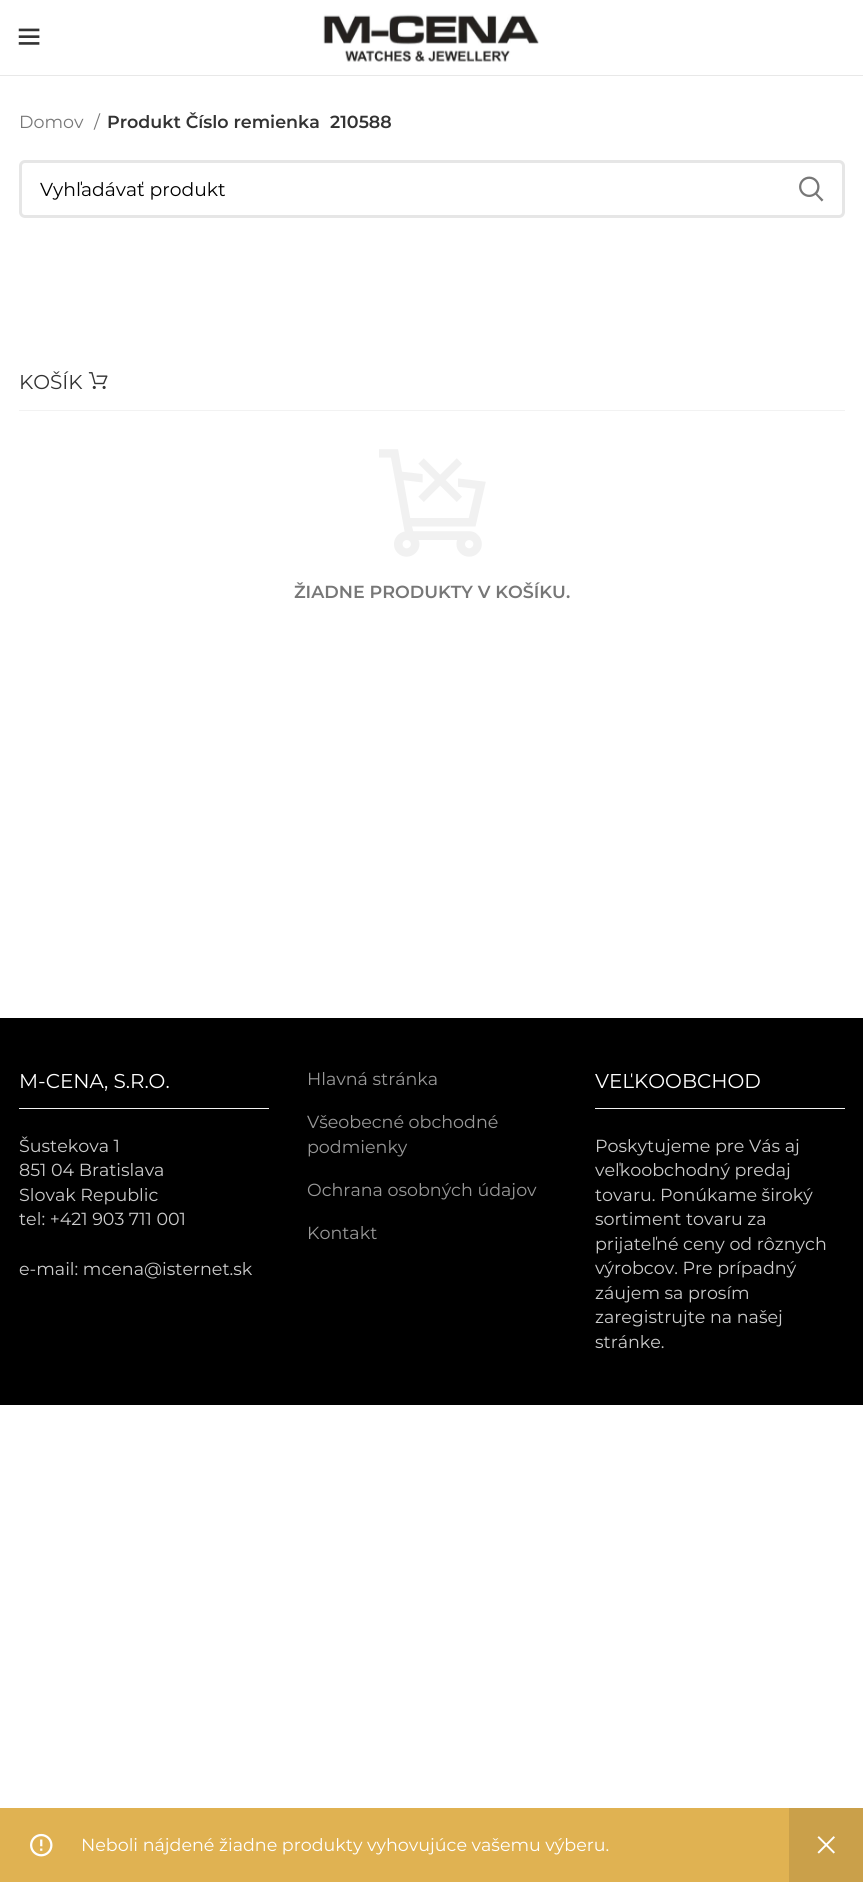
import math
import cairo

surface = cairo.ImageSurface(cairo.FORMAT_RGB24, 863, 1882)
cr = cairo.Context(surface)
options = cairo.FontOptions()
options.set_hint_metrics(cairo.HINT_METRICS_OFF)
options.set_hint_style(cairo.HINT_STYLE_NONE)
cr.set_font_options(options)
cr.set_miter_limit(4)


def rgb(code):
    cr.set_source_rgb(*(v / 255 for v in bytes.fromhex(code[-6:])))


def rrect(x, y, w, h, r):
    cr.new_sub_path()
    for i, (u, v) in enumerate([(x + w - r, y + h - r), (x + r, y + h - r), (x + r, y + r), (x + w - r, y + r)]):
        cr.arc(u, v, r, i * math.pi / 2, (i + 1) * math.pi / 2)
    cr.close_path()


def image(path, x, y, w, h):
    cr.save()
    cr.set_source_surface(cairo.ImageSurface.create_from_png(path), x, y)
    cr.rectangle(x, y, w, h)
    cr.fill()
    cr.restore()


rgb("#ffffff")
cr.paint()
rgb("#e8e8e8")
cr.rectangle(0, 75, 863, 1)
cr.fill()
image("img/1.png", 18, 28, 22, 17)
image("img/2.png", 323, 14, 216, 48)
rrect(20.5, 161.5, 823, 55, 4.5)
rgb("#e6e6e6")
cr.set_line_width(3)
cr.stroke()
image("img/3.png", 799, 176, 25, 26)
rgb("#e0b252")
cr.rectangle(0, 1808, 789, 74)
cr.fill()
image("img/4.png", 30, 1833, 23, 24)
rgb("#caa04a")
cr.rectangle(789, 1808, 74, 74)
cr.fill()
image("img/5.png", 817, 1836, 18, 18)
rgb("#f2f2f2")
cr.rectangle(19, 410, 826, 1)
cr.fill()
image("img/6.png", 88, 372, 20, 17)
image("img/7.png", 379, 449, 107, 108)
for x, y, w, h, color in [
    (0, 1018, 863, 387, "#000000"),
    (19, 1108, 250, 1, "#f2f2f2"),
    (595, 1108, 250, 1, "#f2f2f2"),
]:
    rgb(color)
    cr.rectangle(x, y, w, h)
    cr.fill()
cr.select_font_face("Montserrat")
cr.set_font_size(17.5)
rgb("#777777")
cr.move_to(19, 128)
cr.show_text("Domov")
cr.move_to(94, 128)
cr.show_text("/")
cr.select_font_face("Montserrat SemiBold")
rgb("#333333")
cr.move_to(107, 128)
cr.show_text("Produkt Číslo remienka")
cr.move_to(330, 128)
cr.show_text("210588")
cr.select_font_face("Montserrat")
cr.set_font_size(18.75)
rgb("#000000")
cr.move_to(40, 196)
cr.show_text("Vyhľadávať produkt")
cr.set_font_size(17.5)
rgb("#ffffff")
cr.move_to(81, 1851)
cr.show_text("Neboli nájdené žiadne produkty vyhovujúce vašemu výberu.")
cr.set_font_size(20)
rgb("#333333")
cr.move_to(19, 389)
cr.show_text("KOŠÍK")
cr.select_font_face("Montserrat SemiBold")
cr.set_font_size(17.5)
rgb("#777777")
cr.move_to(294, 598)
cr.show_text("ŽIADNE PRODUKTY V KOŠÍKU.")
cr.select_font_face("Montserrat")
cr.set_font_size(20)
rgb("#ffffff")
cr.move_to(19, 1088)
cr.show_text("M-CENA, S.R.O.")
cr.set_font_size(17.5)
rgb("#cccccc")
for x, y, s in [
    (19, 1152, "Šustekova 1"),
    (19, 1176, "851 04 Bratislava"),
    (19, 1201, "Slovak Republic"),
    (19, 1225, "tel: +421 903 711 001"),
    (19, 1275, "e-mail: mcena@isternet.sk"),
]:
    cr.move_to(x, y)
    cr.show_text(s)
rgb("#999999")
for x, y, s in [
    (307, 1085, "Hlavná stránka"),
    (307, 1128, "Všeobecné obchodné"),
    (307, 1153, "podmienky"),
    (307, 1196, "Ochrana osobných údajov"),
    (307, 1239, "Kontakt"),
]:
    cr.move_to(x, y)
    cr.show_text(s)
cr.set_font_size(20)
rgb("#ffffff")
cr.move_to(595, 1088)
cr.show_text("VEĽKOOBCHOD")
cr.set_font_size(17.5)
rgb("#cccccc")
for x, y, s in [
    (595, 1152, "Poskytujeme pre Vás aj"),
    (595, 1176, "veľkoobchodný predaj"),
    (595, 1201, "tovaru. Ponúkame široký"),
    (595, 1225, "sortiment tovaru za"),
    (595, 1250, "prijateľné ceny od rôznych"),
    (595, 1274, "výrobcov. Pre prípadný"),
    (595, 1299, "záujem sa prosím"),
    (595, 1323, "zaregistrujte na našej"),
    (595, 1348, "stránke."),
]:
    cr.move_to(x, y)
    cr.show_text(s)
surface.write_to_png("page.png")
